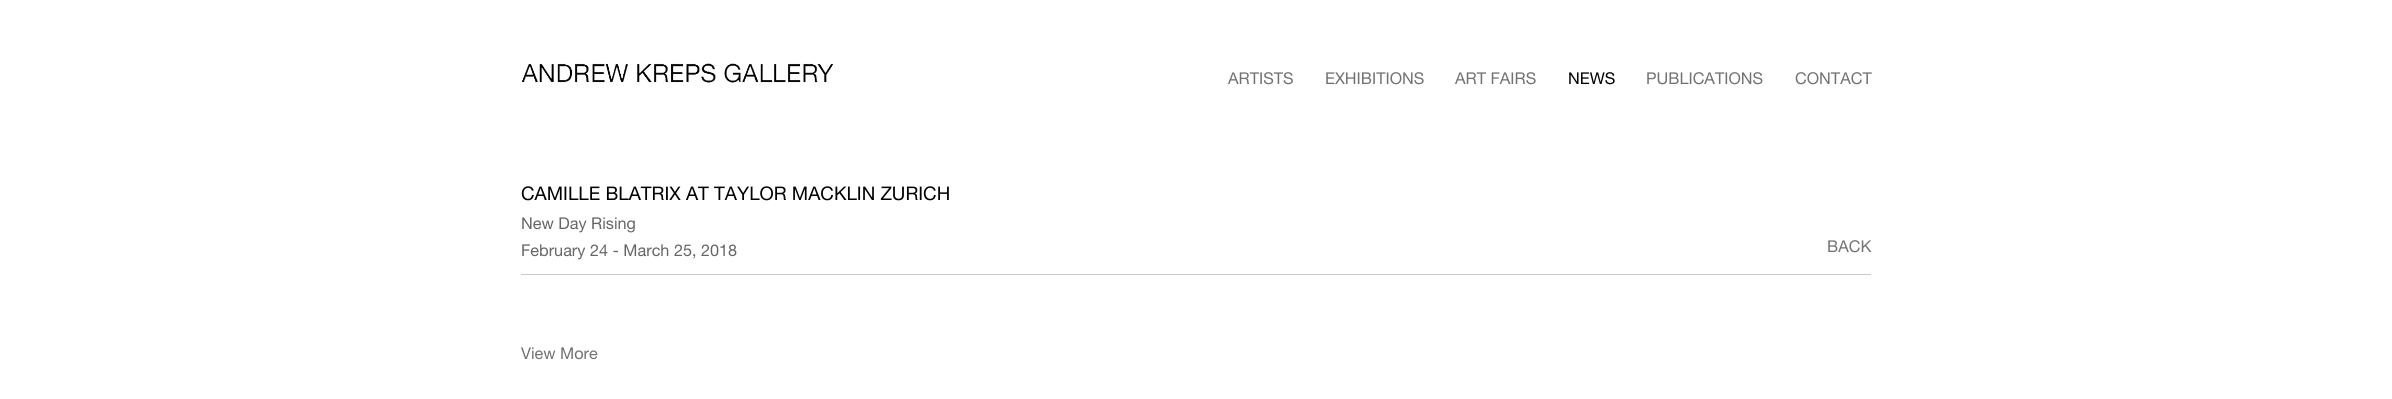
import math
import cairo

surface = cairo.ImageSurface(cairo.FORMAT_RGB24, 2392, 399)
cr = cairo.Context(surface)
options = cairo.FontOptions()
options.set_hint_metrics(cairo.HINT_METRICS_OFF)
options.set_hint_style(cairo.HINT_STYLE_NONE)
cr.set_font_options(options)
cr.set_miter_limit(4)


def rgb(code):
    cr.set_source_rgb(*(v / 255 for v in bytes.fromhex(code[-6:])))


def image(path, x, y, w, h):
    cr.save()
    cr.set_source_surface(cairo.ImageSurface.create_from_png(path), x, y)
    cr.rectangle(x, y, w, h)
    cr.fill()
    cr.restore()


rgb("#ffffff")
cr.paint()
image("img/1.png", 522, 63, 311, 20)
rgb("#cccccc")
cr.rectangle(521, 274, 1350, 1)
cr.fill()
cr.select_font_face("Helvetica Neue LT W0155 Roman")
cr.set_font_size(16.25)
rgb("#727272")
for x, y, s in [
    (1228, 84, "ARTISTS"),
    (1325, 84, "EXHIBITIONS"),
    (1455, 84, "ART FAIRS"),
]:
    cr.move_to(x, y)
    cr.show_text(s)
rgb("#000000")
cr.move_to(1568, 84)
cr.show_text("NEWS")
rgb("#727272")
cr.move_to(1646, 84)
cr.show_text("PUBLICATIONS")
cr.move_to(1795, 84)
cr.show_text("CONTACT")
cr.set_font_size(18.75)
rgb("#000000")
cr.move_to(521, 200)
cr.show_text("CAMILLE BLATRIX AT TAYLOR MACKLIN ZURICH")
cr.set_font_size(16.25)
rgb("#666666")
cr.move_to(521, 229)
cr.show_text("New Day Rising")
cr.move_to(521, 256)
cr.show_text("February 24 - March 25, 2018")
rgb("#727272")
cr.move_to(1827, 252)
cr.show_text("BACK")
cr.move_to(521, 359)
cr.show_text("View More")
surface.write_to_png("page.png")
